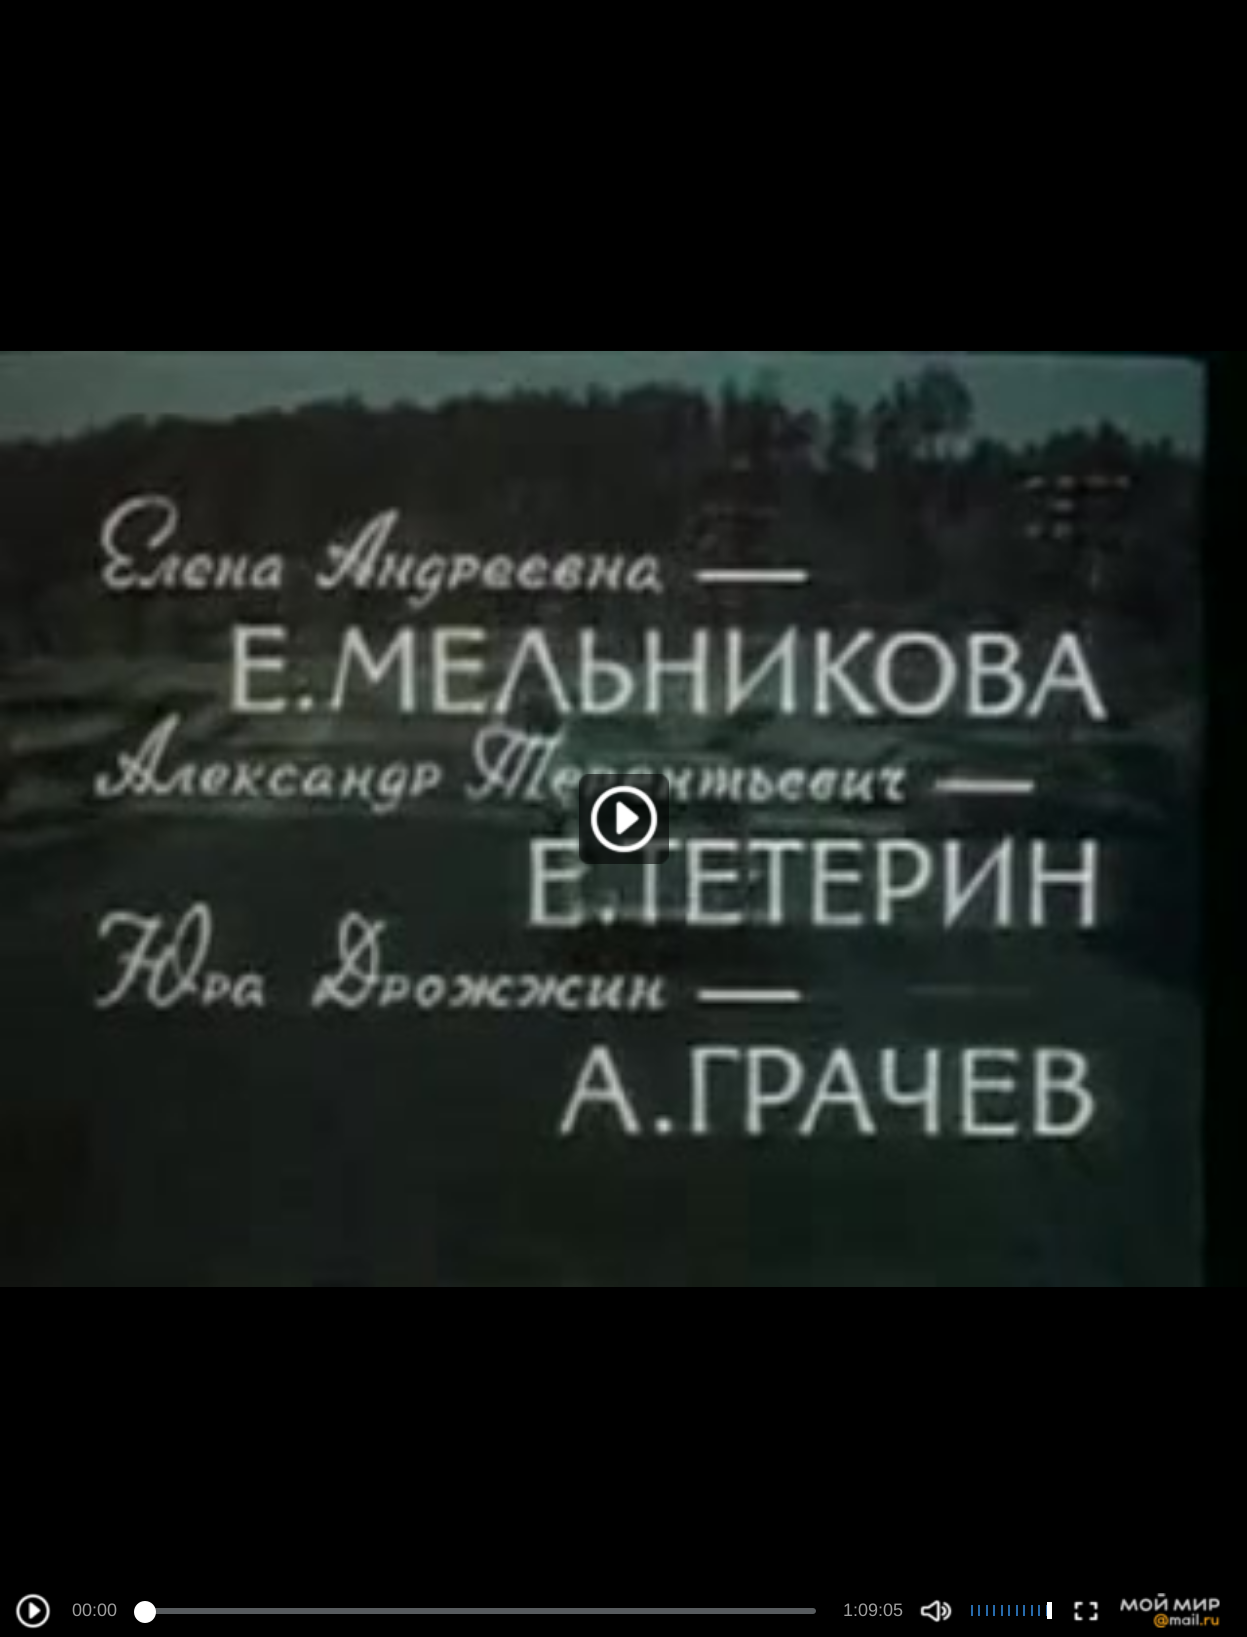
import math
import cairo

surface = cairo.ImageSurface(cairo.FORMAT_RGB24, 1247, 1637)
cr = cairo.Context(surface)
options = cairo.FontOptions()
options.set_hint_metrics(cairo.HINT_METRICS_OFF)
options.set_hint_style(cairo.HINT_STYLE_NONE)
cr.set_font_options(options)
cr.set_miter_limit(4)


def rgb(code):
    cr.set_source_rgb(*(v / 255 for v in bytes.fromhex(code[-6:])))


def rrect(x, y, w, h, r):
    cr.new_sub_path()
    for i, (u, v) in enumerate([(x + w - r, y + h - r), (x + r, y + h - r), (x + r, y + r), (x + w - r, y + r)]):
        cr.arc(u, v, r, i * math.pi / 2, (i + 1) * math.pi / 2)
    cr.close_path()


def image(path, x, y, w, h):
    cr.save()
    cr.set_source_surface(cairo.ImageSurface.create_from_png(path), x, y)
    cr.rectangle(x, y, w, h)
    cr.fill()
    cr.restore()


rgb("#000000")
cr.paint()
image("img/1.png", 0, 351, 1247, 936)
image("img/2.png", 579, 774, 90, 90)
image("img/3.png", 15, 1593, 36, 36)
rgb("#575b5e")
rrect(144, 1608, 672, 6, 3)
cr.fill()
rgb("#ffffff")
cr.arc(145, 1612, 11, 0, 2 * math.pi)
cr.fill()
image("img/4.png", 919, 1599, 34, 24)
for x, y, w, h, color in [
    (971, 1605, 2, 11, "#276bad"),
    (978, 1605, 2, 11, "#276bad"),
    (986, 1605, 2, 11, "#276bad"),
    (993, 1605, 2, 11, "#276bad"),
    (1001, 1605, 2, 11, "#276bad"),
    (1008, 1605, 2, 11, "#276bad"),
    (1016, 1605, 2, 11, "#276bad"),
    (1023, 1605, 2, 11, "#276bad"),
    (1031, 1605, 2, 11, "#276bad"),
    (1038, 1605, 2, 11, "#276bad"),
    (1046, 1605, 1, 11, "#276bad"),
    (1047, 1602, 5, 17, "#ffffff"),
]:
    rgb(color)
    cr.rectangle(x, y, w, h)
    cr.fill()
image("img/5.png", 1073, 1600, 26, 22)
image("img/6.png", 1120, 1593, 100, 35)
cr.select_font_face("Liberation Sans")
cr.set_font_size(18)
rgb("#9d9d9d")
cr.move_to(72, 1616)
cr.show_text("00:00")
cr.move_to(843, 1616)
cr.show_text("1:09:05")
surface.write_to_png("page.png")
